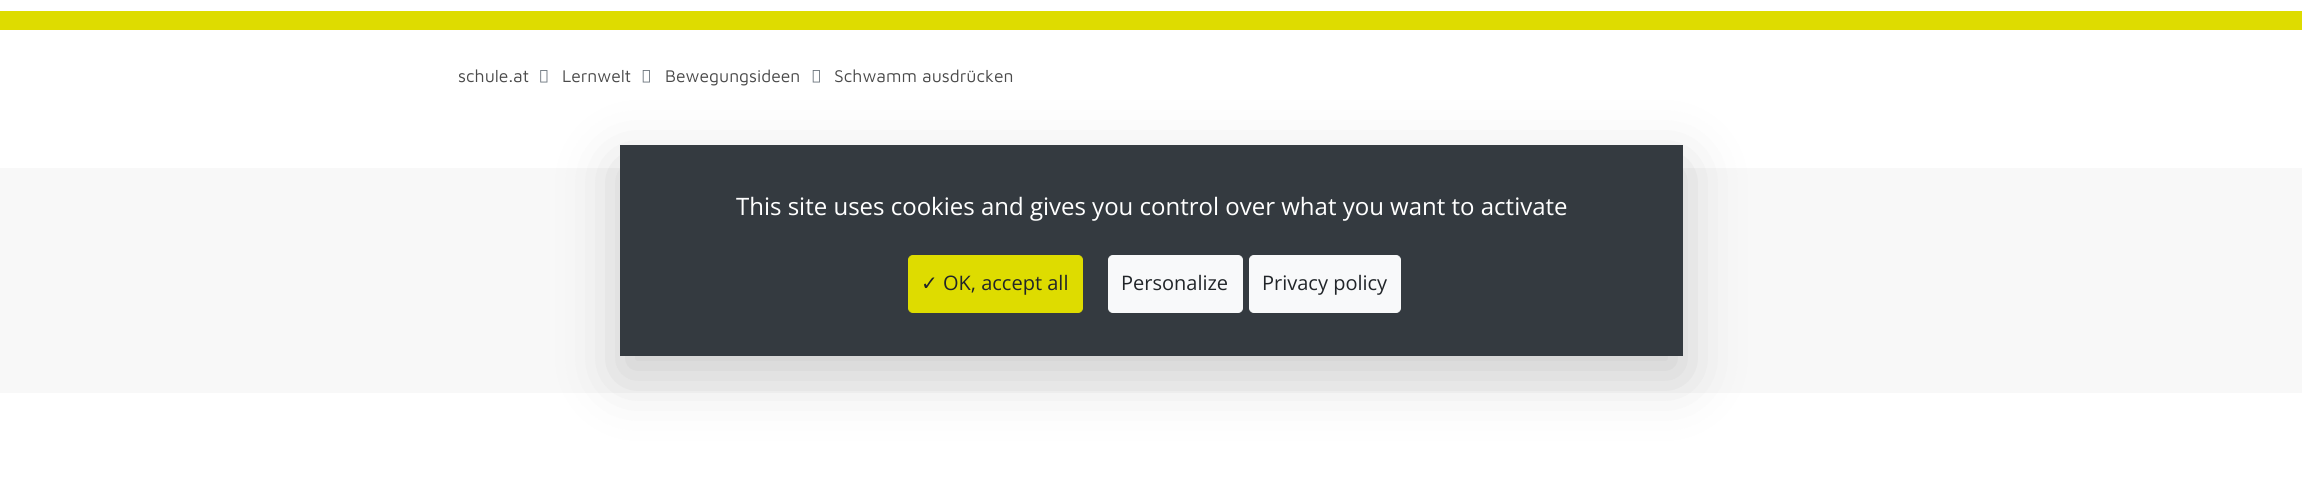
import math
import cairo

surface = cairo.ImageSurface(cairo.FORMAT_RGB24, 2302, 499)
cr = cairo.Context(surface)
options = cairo.FontOptions()
options.set_hint_metrics(cairo.HINT_METRICS_OFF)
options.set_hint_style(cairo.HINT_STYLE_NONE)
cr.set_font_options(options)
cr.set_miter_limit(4)


def rgb(code):
    cr.set_source_rgb(*(v / 255 for v in bytes.fromhex(code[-6:])))


def rrect(x, y, w, h, r):
    cr.new_sub_path()
    for i, (u, v) in enumerate([(x + w - r, y + h - r), (x + r, y + h - r), (x + r, y + r), (x + w - r, y + r)]):
        cr.arc(u, v, r, i * math.pi / 2, (i + 1) * math.pi / 2)
    cr.close_path()


def soft_shadow(x, y, w, h, r, blur, alpha):
    cr.push_group_with_content(cairo.CONTENT_ALPHA)
    cr.set_operator(cairo.OPERATOR_SOURCE)
    for i in range(15, -16, -2):
        e = blur * i / 6
        if min(w, h) + 2 * e > 0:
            cr.set_source_rgba(0, 0, 0, alpha * math.erfc((i - 1) / 8.5) / 2)
            rrect(x - e, y - e, w + 2 * e, h + 2 * e, max(0, min(r + e + blur * .6, min(w, h) / 2 + e)))
            cr.fill()
    cr.mask(cr.pop_group())


def image(path, x, y, w, h):
    cr.save()
    cr.set_source_surface(cairo.ImageSurface.create_from_png(path), x, y)
    cr.rectangle(x, y, w, h)
    cr.fill()
    cr.restore()


rgb("#ffffff")
cr.paint()
rgb("#dedc00")
cr.rectangle(0, 11, 2302, 19)
cr.fill()
image("img/1.png", 540, 70, 8, 13)
image("img/2.png", 642, 70, 8, 13)
image("img/2.png", 812, 70, 8, 13)
rgb("#f8f8f8")
cr.rectangle(0, 168, 2302, 225)
cr.fill()
rgb("#000000")
soft_shadow(620, 165, 1063, 211, 0, 30, 0.18)
rgb("#343a40")
cr.rectangle(620, 145, 1063, 211)
cr.fill()
rgb("#dedc00")
rrect(908.5, 255.5, 174, 57, 4.5)
cr.fill_preserve()
cr.set_line_width(1)
cr.stroke()
rgb("#f8f9fa")
rrect(1108.5, 255.5, 134, 57, 4.5)
cr.fill_preserve()
cr.stroke()
rrect(1249.5, 255.5, 151, 57, 4.5)
cr.fill_preserve()
cr.stroke()
cr.select_font_face("Maven Pro")
cr.set_font_size(17.5)
rgb("#4a4a4a")
for x, y, s in [
    (458, 82, "schule.at"),
    (562, 82, "Lernwelt"),
    (665, 82, "Bewegungsideen"),
    (834, 82, "Schwamm ausdrücken"),
]:
    cr.move_to(x, y)
    cr.show_text(s)
cr.select_font_face("Open Sans")
cr.set_font_size(24)
rgb("#ffffff")
cr.move_to(736, 215)
cr.show_text("This site uses cookies and gives you control over what you want to activate")
cr.select_font_face("DejaVu Sans")
cr.set_font_size(20)
rgb("#212529")
cr.move_to(921, 290)
cr.show_text("✓")
cr.select_font_face("Open Sans")
for x, y, s in [
    (943, 290, "OK, accept all"),
    (1121, 290, "Personalize"),
    (1262, 290, "Privacy policy"),
]:
    cr.move_to(x, y)
    cr.show_text(s)
surface.write_to_png("page.png")
